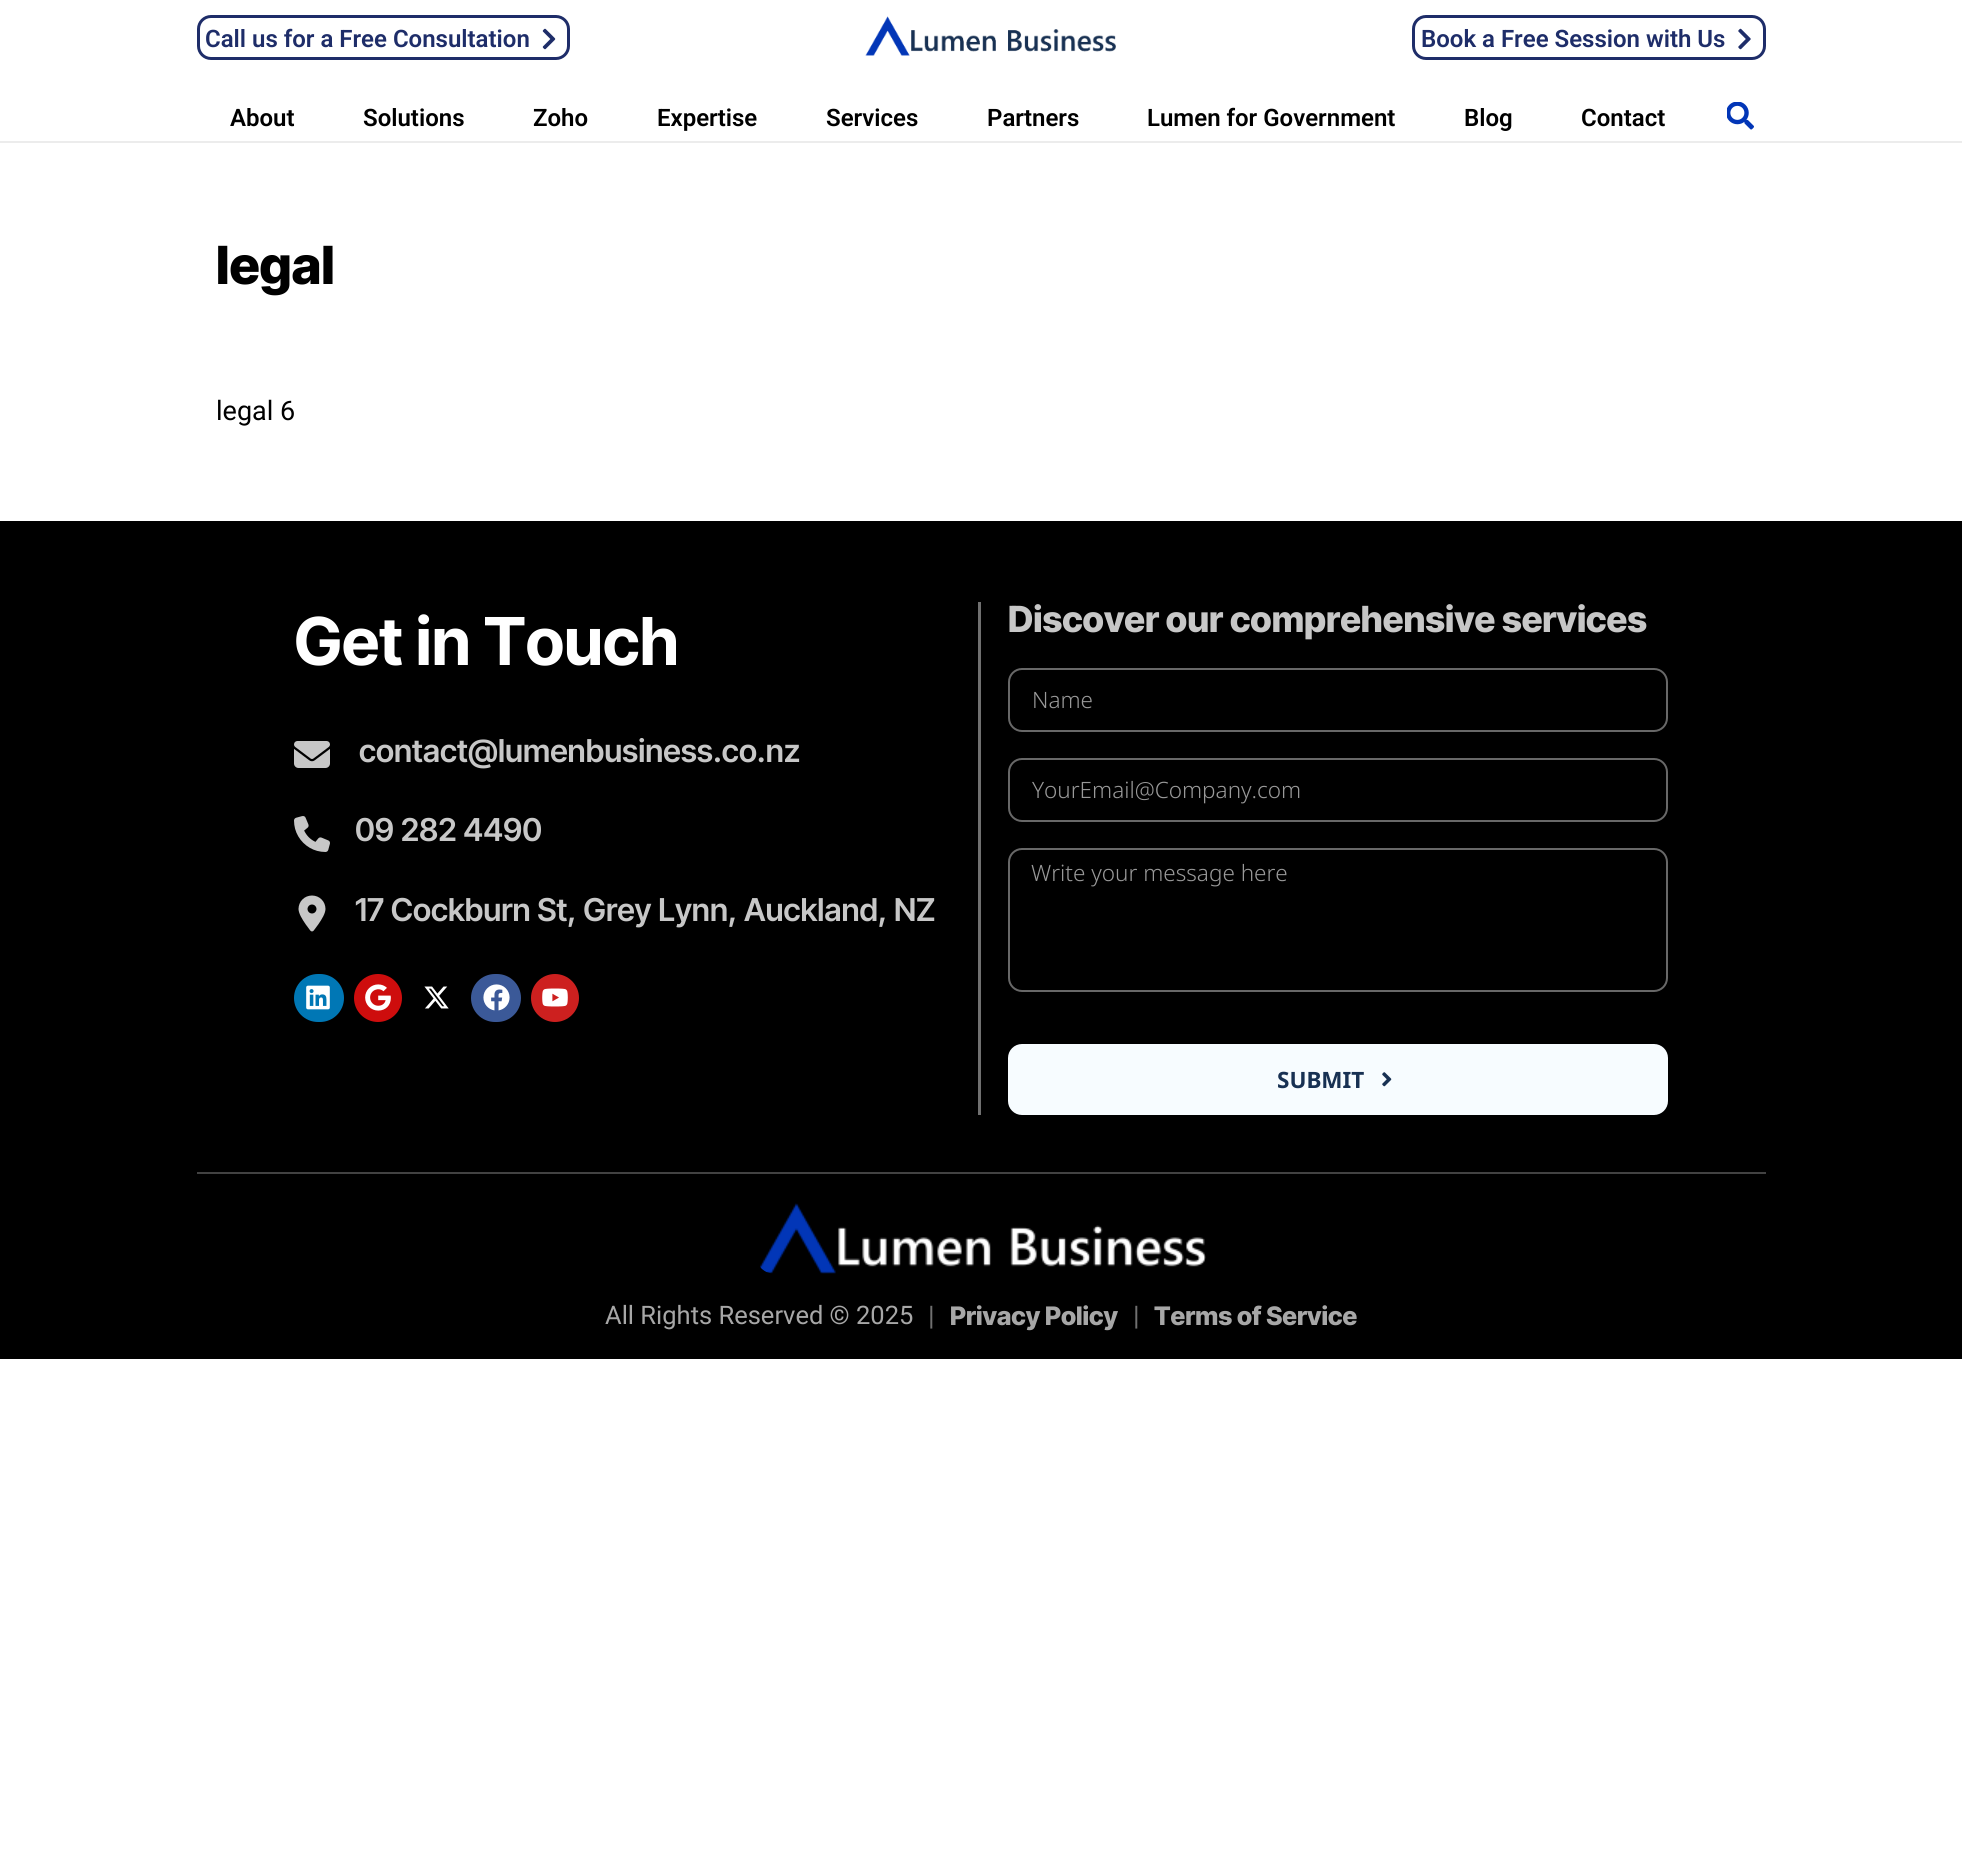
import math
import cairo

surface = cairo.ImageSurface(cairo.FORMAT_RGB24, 1962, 1871)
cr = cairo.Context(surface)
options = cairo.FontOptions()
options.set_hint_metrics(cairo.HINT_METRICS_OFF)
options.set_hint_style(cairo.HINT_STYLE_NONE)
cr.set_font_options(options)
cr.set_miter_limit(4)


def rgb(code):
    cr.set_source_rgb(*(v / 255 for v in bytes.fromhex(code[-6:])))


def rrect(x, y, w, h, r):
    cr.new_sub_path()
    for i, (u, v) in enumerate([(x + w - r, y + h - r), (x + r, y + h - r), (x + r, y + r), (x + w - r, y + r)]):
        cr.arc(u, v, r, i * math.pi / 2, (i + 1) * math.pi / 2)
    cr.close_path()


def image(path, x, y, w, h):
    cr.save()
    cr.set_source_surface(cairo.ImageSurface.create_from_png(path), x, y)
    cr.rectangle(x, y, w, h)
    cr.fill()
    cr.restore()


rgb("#ffffff")
cr.paint()
rgb("#ececec")
cr.rectangle(0, 141, 1962, 2)
cr.fill()
rrect(198.5, 16.5, 370, 42, 12.5)
rgb("#1e2d69")
cr.set_line_width(3)
cr.stroke()
image("img/1.png", 542, 28, 14, 22)
image("img/2.png", 865, 16, 251, 40)
rrect(1413.5, 16.5, 351, 42, 12.5)
cr.stroke()
image("img/3.png", 1738, 28, 13, 22)
image("img/4.png", 1727, 102, 27, 28)
rgb("#000000")
cr.rectangle(0, 521, 1962, 838)
cr.fill()
rgb("#707070")
cr.rectangle(978, 602, 3, 513)
cr.fill()
image("img/5.png", 294, 741, 36, 27)
image("img/6.png", 294, 816, 36, 36)
image("img/7.png", 298, 895, 28, 37)
rgb("#0077b5")
rrect(294, 974, 50, 48, 24)
cr.fill()
image("img/8.png", 306, 985, 24, 25)
rgb("#ce0d0d")
cr.arc(378, 998, 24, 0, 2 * math.pi)
cr.fill()
image("img/9.png", 365, 984, 26, 27)
image("img/10.png", 424, 986, 25, 23)
rgb("#3b5998")
rrect(471, 974, 50, 48, 24)
cr.fill()
image("img/11.png", 483, 984, 27, 27)
rgb("#cd201f")
cr.arc(555, 998, 24, 0, 2 * math.pi)
cr.fill()
image("img/12.png", 542, 988, 26, 19)
rrect(1009, 669, 658, 62, 13)
rgb("#686868")
cr.set_line_width(2)
cr.stroke()
rrect(1009, 759, 658, 62, 13)
cr.stroke()
rrect(1009, 849, 658, 142, 13)
cr.stroke()
rgb("#f7fcff")
rrect(1008, 1044, 660, 71, 14)
cr.fill()
image("img/13.png", 1382, 1072, 10, 15)
rgb("#424242")
cr.rectangle(197, 1172, 1569, 2)
cr.fill()
image("img/14.png", 760, 1203, 446, 71)
cr.select_font_face("Roboto SemiBold")
cr.set_font_size(24)
rgb("#1e2d69")
cr.move_to(205, 47)
cr.show_text("Call us for a Free Consultation")
cr.move_to(1421, 47)
cr.show_text("Book a Free Session with Us")
rgb("#000000")
for x, y, s in [
    (230, 126, "About"),
    (363, 126, "Solutions"),
    (533, 126, "Zoho"),
    (657, 126, "Expertise"),
    (826, 126, "Services"),
    (987, 126, "Partners"),
    (1147, 126, "Lumen for Government"),
    (1464, 126, "Blog"),
    (1581, 126, "Contact"),
]:
    cr.move_to(x, y)
    cr.show_text(s)
cr.select_font_face("Inter Tight ExtraBold")
cr.set_font_size(52.5)
cr.move_to(216, 284)
cr.show_text("legal")
cr.select_font_face("Roboto")
cr.set_font_size(27)
cr.move_to(216, 420)
cr.show_text("legal 6")
cr.select_font_face("Inter Tight", cairo.FONT_SLANT_NORMAL, cairo.FONT_WEIGHT_BOLD)
cr.set_font_size(66)
rgb("#ffffff")
cr.move_to(294, 665)
cr.show_text("Get in Touch")
cr.select_font_face("Inter Tight SemiBold")
cr.set_font_size(31.5)
rgb("#c7c7c7")
for x, y, s in [
    (359, 762, "contact@lumenbusiness.co.nz"),
    (355, 841, "09 282 4490"),
    (355, 921, "17 Cockburn St, Grey Lynn, Auckland, NZ"),
]:
    cr.move_to(x, y)
    cr.show_text(s)
cr.select_font_face("Inter Tight ExtraBold")
cr.set_font_size(36)
cr.move_to(1008, 632)
cr.show_text("Discover our comprehensive services")
cr.select_font_face("Noto Sans Light")
cr.set_font_size(22.5)
rgb("#999999")
for x, y, s in [
    (1032, 708, "Name"),
    (1032, 798, "YourEmail@Company.com"),
    (1031, 881, "Write your message here"),
]:
    cr.move_to(x, y)
    cr.show_text(s)
cr.select_font_face("Noto Sans", cairo.FONT_SLANT_NORMAL, cairo.FONT_WEIGHT_BOLD)
rgb("#183153")
cr.move_to(1277, 1088)
cr.show_text("SUBMIT")
cr.select_font_face("Roboto")
cr.set_font_size(25.5)
rgb("#a7a7a7")
cr.move_to(605, 1324)
cr.show_text("All Rights Reserved © 2025")
cr.set_font_size(27)
rgb("#707070")
cr.move_to(928, 1325)
cr.show_text("|")
cr.select_font_face("Inter Tight ExtraBold")
cr.set_font_size(25.5)
rgb("#a7a7a7")
cr.move_to(950, 1325)
cr.show_text("Privacy Policy")
cr.select_font_face("Roboto")
cr.set_font_size(27)
rgb("#707070")
cr.move_to(1133, 1325)
cr.show_text("|")
cr.select_font_face("Inter Tight ExtraBold")
cr.set_font_size(25.5)
rgb("#a7a7a7")
cr.move_to(1154, 1325)
cr.show_text("Terms of Service")
surface.write_to_png("page.png")
